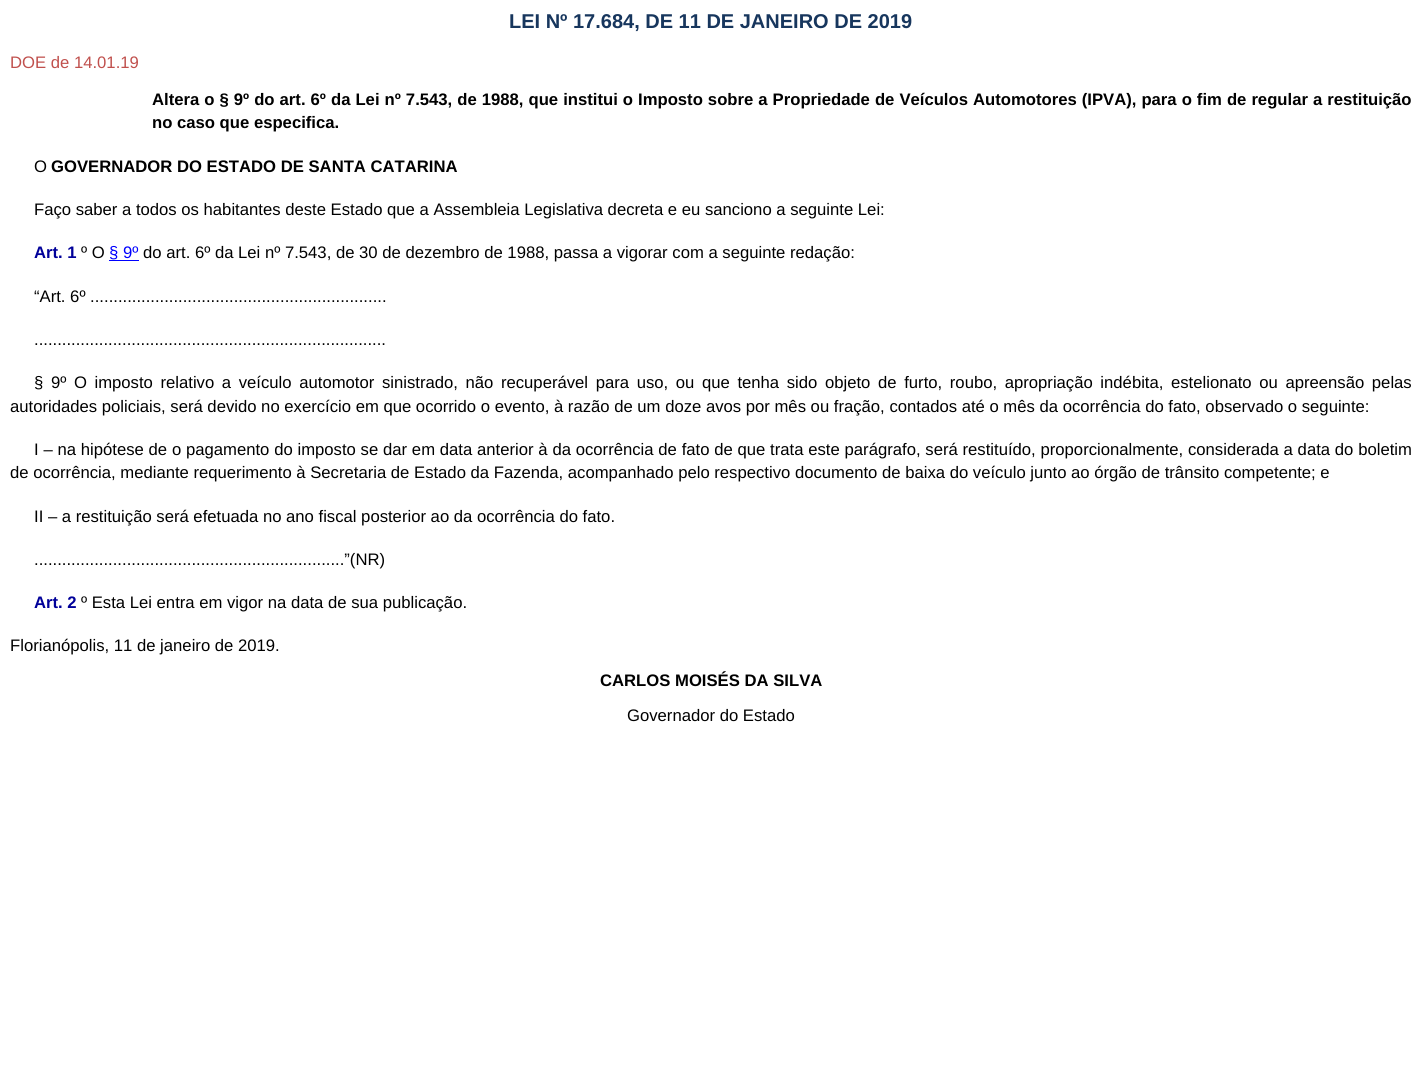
import math
import cairo

surface = cairo.ImageSurface(cairo.FORMAT_RGB24, 1421, 1079)
cr = cairo.Context(surface)
options = cairo.FontOptions()
options.set_hint_metrics(cairo.HINT_METRICS_OFF)
options.set_hint_style(cairo.HINT_STYLE_NONE)
cr.set_font_options(options)
cr.set_miter_limit(4)


def rgb(code):
    cr.set_source_rgb(*(v / 255 for v in bytes.fromhex(code[-6:])))


def tracked(x, y, s, letter, word):
    cr.move_to(x, y)
    for ch in s:
        cr.show_text(ch)
        cr.rel_move_to(letter + word * (ch == ' '), 0)


rgb("#ffffff")
cr.paint()
rgb("#0000ff")
cr.rectangle(109, 260, 30, 1)
cr.fill()
cr.select_font_face("Liberation Sans", cairo.FONT_SLANT_NORMAL, cairo.FONT_WEIGHT_BOLD)
cr.set_font_size(20)
rgb("#17365d")
cr.move_to(509, 28)
cr.show_text("LEI Nº 17.684, DE 11 DE JANEIRO DE 2019")
cr.select_font_face("Liberation Sans")
cr.set_font_size(16.67)
rgb("#c0504d")
cr.move_to(10, 68)
cr.show_text("DOE de 14.01.19")
cr.select_font_face("Liberation Sans", cairo.FONT_SLANT_NORMAL, cairo.FONT_WEIGHT_BOLD)
rgb("#000000")
tracked(152, 105, "Altera o § 9º do art. 6º da Lei nº 7.543, de 1988, que institui o Imposto sobre a Propriedade de Veículos Automotores (IPVA), para o fim de regular a restituição", 0, 0.4)
cr.move_to(152, 128)
cr.show_text("no caso que especifica.")
cr.select_font_face("Liberation Sans")
cr.move_to(34, 172)
cr.show_text("O")
cr.select_font_face("Liberation Sans", cairo.FONT_SLANT_NORMAL, cairo.FONT_WEIGHT_BOLD)
cr.move_to(51, 172)
cr.show_text("GOVERNADOR DO ESTADO DE SANTA CATARINA")
cr.select_font_face("Liberation Sans")
cr.move_to(34, 215)
cr.show_text("Faço saber a todos os habitantes deste Estado que a Assembleia Legislativa decreta e eu sanciono a seguinte Lei:")
cr.select_font_face("Liberation Sans", cairo.FONT_SLANT_NORMAL, cairo.FONT_WEIGHT_BOLD)
rgb("#000099")
cr.move_to(34, 258)
cr.show_text("Art. 1")
cr.select_font_face("Liberation Sans")
rgb("#000000")
cr.move_to(81, 258)
cr.show_text("º O")
rgb("#0000ff")
cr.move_to(109, 258)
cr.show_text("§ 9º")
rgb("#000000")
for x, y, s in [
    (143, 258, "do art. 6º da Lei nº 7.543, de 30 de dezembro de 1988, passa a vigorar com a seguinte redação:"),
    (34, 302, "“Art. 6º ................................................................"),
    (34, 345, "............................................................................"),
]:
    cr.move_to(x, y)
    cr.show_text(s)
tracked(34, 388, "§ 9º O imposto relativo a veículo automotor sinistrado, não recuperável para uso, ou que tenha sido objeto de furto, roubo, apropriação indébita, estelionato ou apreensão pelas", 0, 3)
cr.move_to(10, 412)
cr.show_text("autoridades policiais, será devido no exercício em que ocorrido o evento, à razão de um doze avos por mês ou fração, contados até o mês da ocorrência do fato, observado o seguinte:")
tracked(34, 455, "I – na hipótese de o pagamento do imposto se dar em data anterior à da ocorrência de fato de que trata este parágrafo, será restituído, proporcionalmente, considerada a data do boletim", 0, 0.15)
for x, y, s in [
    (10, 478, "de ocorrência, mediante requerimento à Secretaria de Estado da Fazenda, acompanhado pelo respectivo documento de baixa do veículo junto ao órgão de trânsito competente; e"),
    (34, 522, "II – a restituição será efetuada no ano fiscal posterior ao da ocorrência do fato."),
    (34, 565, "...................................................................”(NR)"),
]:
    cr.move_to(x, y)
    cr.show_text(s)
cr.select_font_face("Liberation Sans", cairo.FONT_SLANT_NORMAL, cairo.FONT_WEIGHT_BOLD)
rgb("#000099")
cr.move_to(34, 608)
cr.show_text("Art. 2")
cr.select_font_face("Liberation Sans")
rgb("#000000")
cr.move_to(81, 608)
cr.show_text("º Esta Lei entra em vigor na data de sua publicação.")
cr.move_to(10, 651)
cr.show_text("Florianópolis, 11 de janeiro de 2019.")
cr.select_font_face("Liberation Sans", cairo.FONT_SLANT_NORMAL, cairo.FONT_WEIGHT_BOLD)
cr.move_to(600, 686)
cr.show_text("CARLOS MOISÉS DA SILVA")
cr.select_font_face("Liberation Sans")
cr.move_to(627, 721)
cr.show_text("Governador do Estado")
surface.write_to_png("page.png")
